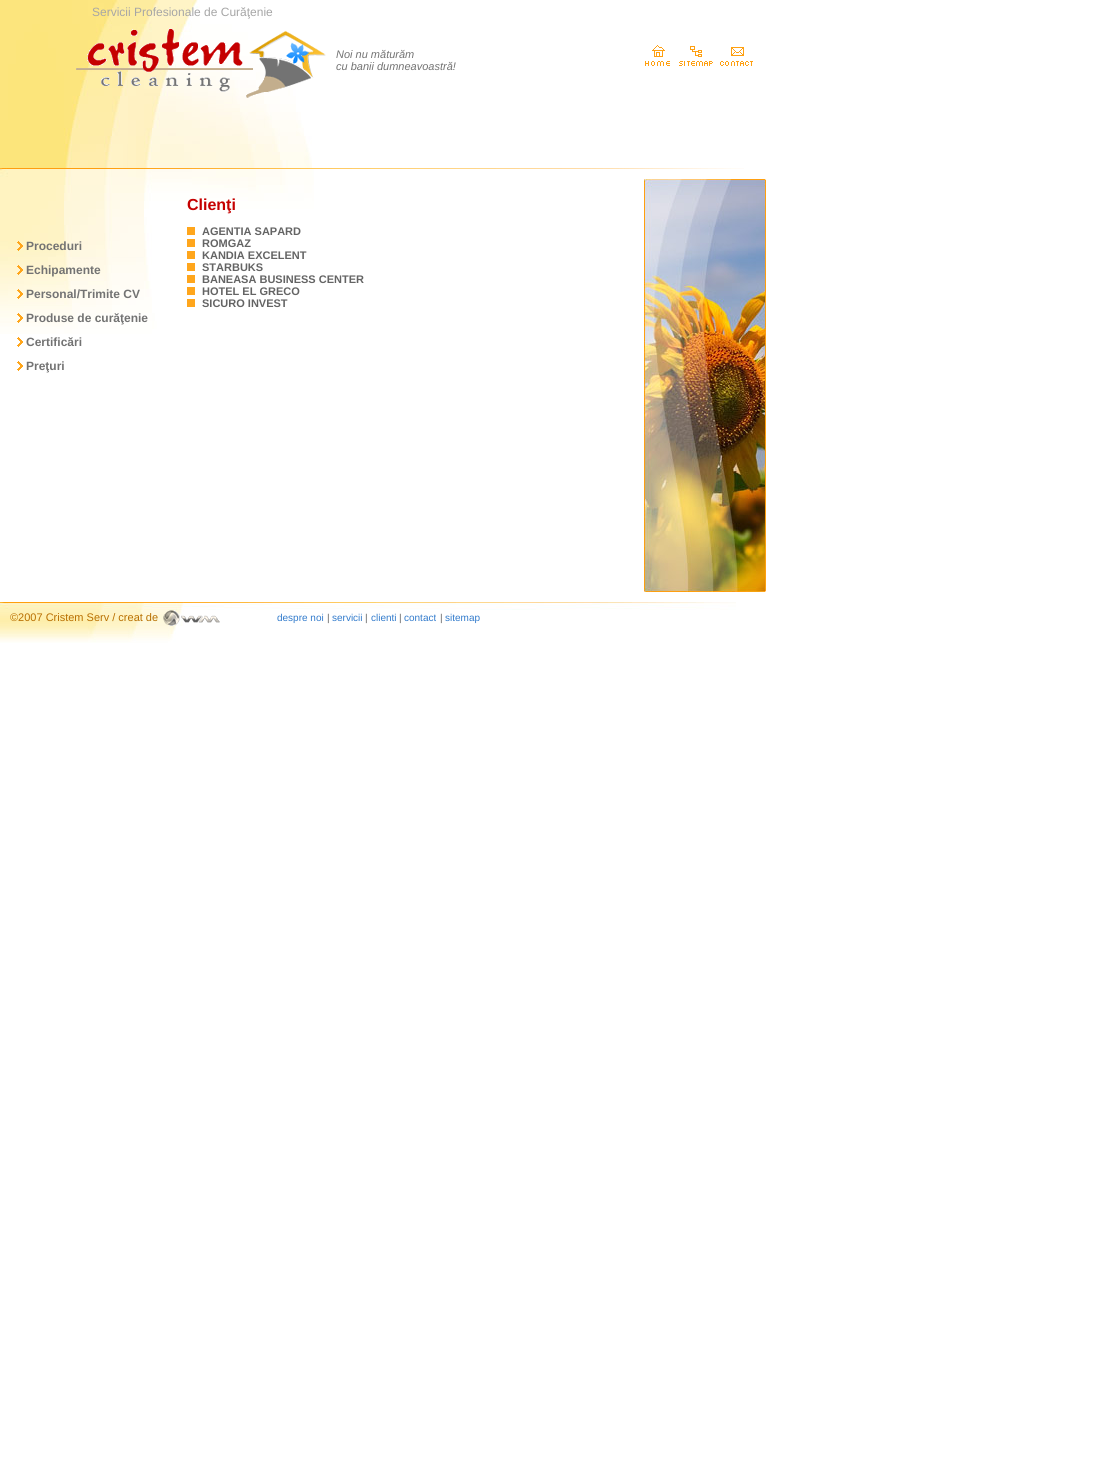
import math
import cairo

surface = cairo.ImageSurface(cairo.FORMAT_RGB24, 1103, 1477)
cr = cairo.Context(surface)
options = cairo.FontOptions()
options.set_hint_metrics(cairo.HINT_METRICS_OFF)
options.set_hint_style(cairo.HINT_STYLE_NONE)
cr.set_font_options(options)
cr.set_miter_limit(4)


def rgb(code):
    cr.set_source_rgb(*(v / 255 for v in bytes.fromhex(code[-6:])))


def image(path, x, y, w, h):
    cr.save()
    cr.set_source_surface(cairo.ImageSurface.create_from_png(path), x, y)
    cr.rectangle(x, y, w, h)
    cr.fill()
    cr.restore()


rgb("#ffffff")
cr.paint()
image("img/1.png", 0, 0, 744, 169)
image("img/2.png", 76, 28, 250, 70)
image("img/3.png", 645, 45, 25, 21)
image("img/4.png", 679, 46, 34, 20)
image("img/5.png", 720, 47, 33, 19)
image("img/6.png", 0, 169, 314, 165)
image("img/7.png", 17, 241, 6, 10)
image("img/8.png", 17, 265, 6, 10)
image("img/9.png", 17, 289, 6, 10)
image("img/10.png", 17, 313, 6, 10)
image("img/11.png", 17, 337, 6, 10)
image("img/11.png", 17, 361, 6, 10)
for x, y, w, h, color in [
    (187, 227, 8, 8, "#ffa61c"),
    (187, 239, 8, 8, "#ffa61c"),
    (187, 251, 8, 8, "#ffa61c"),
    (187, 263, 8, 8, "#ffa61c"),
    (187, 275, 8, 8, "#ffa61c"),
    (187, 287, 8, 8, "#ffa61c"),
    (187, 299, 8, 8, "#ffa61c"),
]:
    rgb(color)
    cr.rectangle(x, y, w, h)
    cr.fill()
image("img/12.png", 644, 179, 122, 413)
image("img/13.png", 0, 602, 736, 41)
image("img/14.png", 163, 610, 57, 16)
cr.select_font_face("Liberation Sans")
cr.set_font_size(12)
rgb("#a6a6a6")
cr.move_to(92, 16)
cr.show_text("Servicii Profesionale de Curăţenie")
cr.select_font_face("Liberation Sans", cairo.FONT_SLANT_ITALIC)
cr.set_font_size(11)
rgb("#737373")
cr.move_to(336, 58)
cr.show_text("Noi nu măturăm")
cr.move_to(336, 70)
cr.show_text("cu banii dumneavoastră!")
cr.select_font_face("Liberation Sans", cairo.FONT_SLANT_NORMAL, cairo.FONT_WEIGHT_BOLD)
cr.set_font_size(12)
for x, y, s in [
    (26, 250, "Proceduri"),
    (26, 274, "Echipamente"),
    (26, 298, "Personal/Trimite CV"),
    (26, 322, "Produse de curăţenie"),
    (26, 346, "Certificări"),
    (26, 370, "Preţuri"),
]:
    cr.move_to(x, y)
    cr.show_text(s)
cr.set_font_size(16)
rgb("#c50000")
cr.move_to(187, 210)
cr.show_text("Clienţi")
cr.set_font_size(11)
rgb("#646464")
for x, y, s in [
    (202, 235, "AGENTIA SAPARD"),
    (202, 247, "ROMGAZ"),
    (202, 259, "KANDIA EXCELENT"),
    (202, 271, "STARBUKS"),
    (202, 283, "BANEASA BUSINESS CENTER"),
    (202, 295, "HOTEL EL GRECO"),
    (202, 307, "SICURO INVEST"),
]:
    cr.move_to(x, y)
    cr.show_text(s)
cr.select_font_face("Liberation Sans")
rgb("#b86f01")
cr.move_to(10, 621)
cr.show_text("©2007 Cristem Serv / creat de")
cr.set_font_size(10)
rgb("#327bcc")
cr.move_to(277, 621)
cr.show_text("despre noi")
rgb("#646464")
cr.move_to(327, 621)
cr.show_text("|")
rgb("#327bcc")
cr.move_to(332, 621)
cr.show_text("servicii")
rgb("#646464")
cr.move_to(365, 621)
cr.show_text("|")
rgb("#327bcc")
cr.move_to(371, 621)
cr.show_text("clienti")
rgb("#646464")
cr.move_to(399, 621)
cr.show_text("|")
rgb("#327bcc")
cr.move_to(404, 621)
cr.show_text("contact")
rgb("#646464")
cr.move_to(440, 621)
cr.show_text("|")
rgb("#327bcc")
cr.move_to(445, 621)
cr.show_text("sitemap")
surface.write_to_png("page.png")
